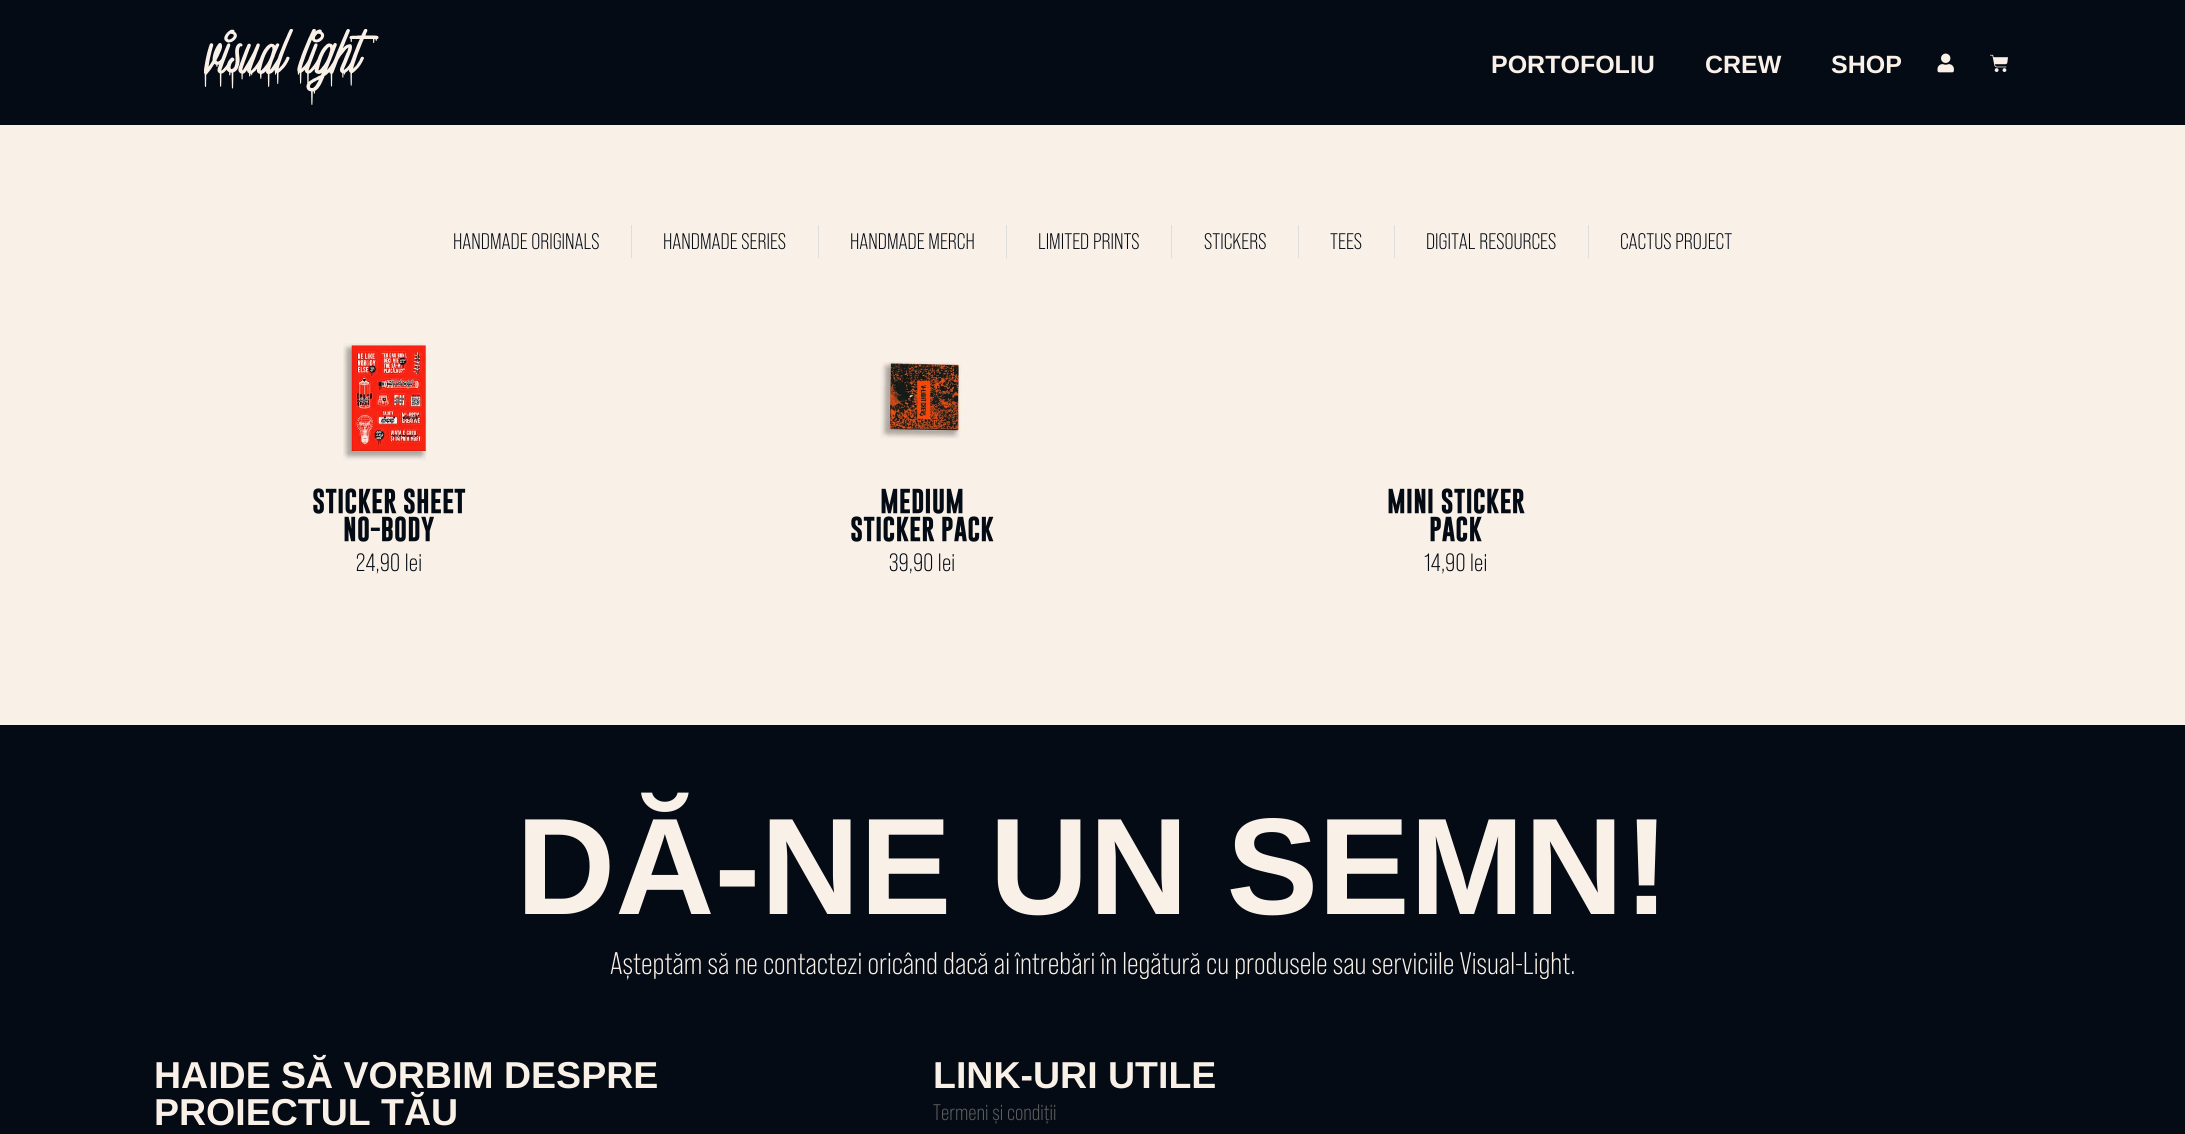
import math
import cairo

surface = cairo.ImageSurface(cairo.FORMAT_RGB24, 2185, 1134)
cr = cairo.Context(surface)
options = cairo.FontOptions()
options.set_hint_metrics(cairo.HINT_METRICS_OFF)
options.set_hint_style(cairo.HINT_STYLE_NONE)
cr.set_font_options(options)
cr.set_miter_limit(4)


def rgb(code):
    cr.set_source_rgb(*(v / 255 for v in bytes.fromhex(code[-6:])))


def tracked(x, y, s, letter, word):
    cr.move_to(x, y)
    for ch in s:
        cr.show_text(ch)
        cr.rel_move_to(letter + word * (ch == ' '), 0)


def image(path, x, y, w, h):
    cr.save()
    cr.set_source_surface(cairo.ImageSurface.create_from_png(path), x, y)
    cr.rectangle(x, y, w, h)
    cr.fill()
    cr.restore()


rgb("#f9f0e8")
cr.paint()
rgb("#040b14")
cr.rectangle(0, 0, 2185, 125)
cr.fill()
image("img/1.png", 204, 29, 175, 76)
image("img/2.png", 1937, 53, 17, 20)
image("img/3.png", 1990, 54, 18, 18)
for x, y, w, h, color in [
    (631, 225, 1, 33, "#dddddd"),
    (818, 225, 1, 33, "#dddddd"),
    (1006, 225, 1, 33, "#dddddd"),
    (1171, 225, 1, 33, "#dddddd"),
    (1298, 225, 1, 33, "#dddddd"),
    (1394, 225, 1, 33, "#dddddd"),
    (1588, 225, 1, 33, "#dddddd"),
]:
    rgb(color)
    cr.rectangle(x, y, w, h)
    cr.fill()
image("img/4.png", 343, 343, 84, 118)
image("img/5.png", 880, 361, 81, 78)
rgb("#040b14")
cr.rectangle(0, 725, 2185, 409)
cr.fill()
cr.select_font_face("Liberation Sans", cairo.FONT_SLANT_NORMAL, cairo.FONT_WEIGHT_BOLD)
cr.set_font_size(25)
rgb("#f9f0e8")
for x, y, s in [
    (1491, 73, "PORTOFOLIU"),
    (1705, 73, "CREW"),
    (1831, 73, "SHOP"),
]:
    cr.move_to(x, y)
    cr.show_text(s)
cr.select_font_face("Bebas Neue")
cr.set_font_size(22.5)
rgb("#040b14")
for x, y, s in [
    (453, 249, "HANDMADE ORIGINALS"),
    (663, 249, "HANDMADE SERIES"),
    (850, 249, "HANDMADE MERCH"),
    (1038, 249, "LIMITED PRINTS"),
    (1204, 249, "STICKERS"),
    (1330, 249, "TEES"),
    (1426, 249, "DIGITAL RESOURCES"),
    (1620, 249, "CACTUS PROJECT"),
]:
    cr.move_to(x, y)
    cr.show_text(s)
cr.select_font_face("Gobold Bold", cairo.FONT_SLANT_NORMAL, cairo.FONT_WEIGHT_BOLD)
cr.set_font_size(25)
cr.move_to(312, 513)
cr.show_text("STICKER SHEET")
cr.move_to(343, 541)
cr.show_text("N0-B0DY")
cr.select_font_face("Bebas Neue")
tracked(356, 571, "24,90 lei", 0.25, 0)
cr.select_font_face("Gobold Bold", cairo.FONT_SLANT_NORMAL, cairo.FONT_WEIGHT_BOLD)
cr.move_to(880, 513)
cr.show_text("MEDIUM")
cr.move_to(850, 541)
cr.show_text("STICKER PACK")
cr.select_font_face("Bebas Neue")
tracked(889, 571, "39,90 lei", 0.25, 0)
cr.select_font_face("Gobold Bold", cairo.FONT_SLANT_NORMAL, cairo.FONT_WEIGHT_BOLD)
cr.move_to(1387, 513)
cr.show_text("MINI STICKER")
cr.move_to(1429, 541)
cr.show_text("PACK")
cr.select_font_face("Bebas Neue")
tracked(1424, 571, "14,90 lei", 0.25, 0)
cr.select_font_face("Liberation Sans", cairo.FONT_SLANT_NORMAL, cairo.FONT_WEIGHT_BOLD)
cr.set_font_size(137.5)
rgb("#f9f0e8")
cr.move_to(516, 914)
cr.show_text("DĂ-NE UN SEMN!")
cr.select_font_face("Bebas Neue")
cr.set_font_size(31.25)
cr.move_to(610, 974)
cr.show_text("Așteptăm să ne contactezi oricând dacă ai întrebări în legătură cu produsele sau serviciile Visual-Light.")
cr.select_font_face("Liberation Sans", cairo.FONT_SLANT_NORMAL, cairo.FONT_WEIGHT_BOLD)
cr.set_font_size(37.5)
for x, y, s in [
    (154, 1088, "HAIDE SĂ VORBIM DESPRE"),
    (154, 1125, "PROIECTUL TĂU"),
    (933, 1088, "LINK-URI UTILE"),
]:
    cr.move_to(x, y)
    cr.show_text(s)
cr.select_font_face("Bebas Neue")
cr.set_font_size(22.5)
rgb("#606060")
cr.move_to(933, 1120)
cr.show_text("Termeni și condiții")
surface.write_to_png("page.png")
